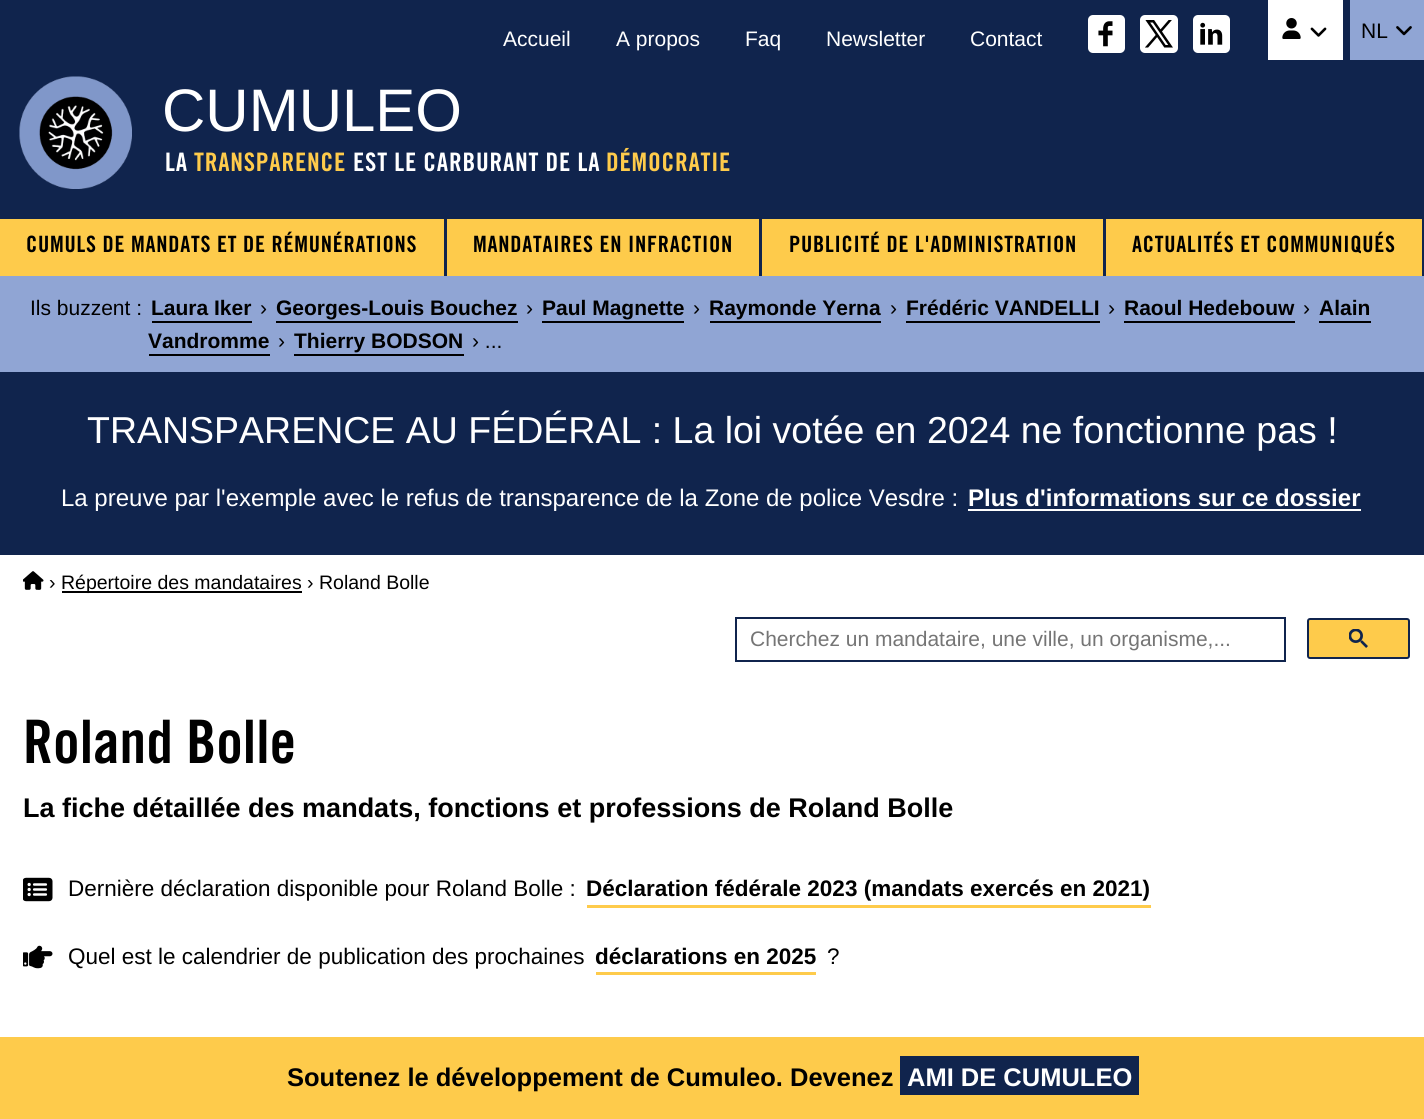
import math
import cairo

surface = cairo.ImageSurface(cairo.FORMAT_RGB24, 1424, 1119)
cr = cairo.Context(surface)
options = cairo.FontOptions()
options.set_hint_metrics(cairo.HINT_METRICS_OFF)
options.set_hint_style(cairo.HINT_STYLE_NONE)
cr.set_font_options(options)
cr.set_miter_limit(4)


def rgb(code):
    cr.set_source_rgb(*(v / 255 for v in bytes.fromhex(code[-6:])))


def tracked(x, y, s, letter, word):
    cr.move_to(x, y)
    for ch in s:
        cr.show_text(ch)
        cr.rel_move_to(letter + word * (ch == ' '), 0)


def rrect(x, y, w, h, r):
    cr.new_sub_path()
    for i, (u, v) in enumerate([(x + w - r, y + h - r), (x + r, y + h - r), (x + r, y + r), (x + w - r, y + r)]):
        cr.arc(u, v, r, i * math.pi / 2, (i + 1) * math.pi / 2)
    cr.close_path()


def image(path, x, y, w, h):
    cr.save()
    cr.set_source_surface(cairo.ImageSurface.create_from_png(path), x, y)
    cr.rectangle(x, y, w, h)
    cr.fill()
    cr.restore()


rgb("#ffffff")
cr.paint()
rgb("#10244d")
cr.rectangle(0, 0, 1424, 219)
cr.fill()
rgb("#ffffff")
rrect(1088, 15, 37, 38, 5)
cr.fill()
image("img/1.png", 1098, 21, 15, 26)
rrect(1140, 15, 38, 38, 5)
cr.fill()
image("img/2.png", 1145, 20, 28, 28)
rrect(1193, 15, 37, 38, 5)
cr.fill()
image("img/3.png", 1200, 22, 23, 23)
cr.rectangle(1268, 0, 75, 60)
cr.fill()
image("img/4.png", 1282, 18, 19, 21)
image("img/5.png", 1310, 27, 17, 10)
rgb("#90a5d4")
cr.rectangle(1350, 0, 74, 60)
cr.fill()
image("img/6.png", 1396, 26, 16, 10)
image("img/7.png", 19, 76, 113, 113)
for x, y, w, h, color in [
    (0, 219, 444, 57, "#fecb4b"),
    (444, 219, 3, 57, "#10244d"),
    (447, 219, 312, 57, "#fecb4b"),
    (759, 219, 3, 57, "#10244d"),
    (762, 219, 341, 57, "#fecb4b"),
    (1103, 219, 3, 57, "#10244d"),
    (1106, 219, 316, 57, "#fecb4b"),
    (1422, 219, 2, 57, "#10244d"),
    (0, 276, 1424, 96, "#90a5d4"),
    (152, 321, 100, 2, "#000000"),
    (276, 321, 242, 2, "#000000"),
    (542, 321, 142, 2, "#000000"),
    (710, 321, 171, 2, "#000000"),
    (906, 321, 194, 2, "#000000"),
    (1124, 321, 171, 2, "#000000"),
    (1319, 321, 52, 2, "#000000"),
    (149, 354, 121, 2, "#000000"),
    (294, 354, 170, 2, "#000000"),
    (0, 372, 1424, 183, "#10244d"),
    (968, 509, 393, 2, "#ffffff"),
]:
    rgb(color)
    cr.rectangle(x, y, w, h)
    cr.fill()
image("img/8.png", 23, 571, 21, 19)
rgb("#000000")
cr.rectangle(62, 591, 240, 2)
cr.fill()
cr.rectangle(736, 618, 549, 43)
rgb("#10244d")
cr.stroke()
rgb("#fecb4b")
rrect(1308, 619, 101, 39, 2)
cr.fill_preserve()
rgb("#10244d")
cr.stroke()
image("img/9.png", 1349, 629, 19, 19)
image("img/10.png", 23, 877, 30, 25)
rgb("#fecb4b")
cr.rectangle(587, 905, 564, 3)
cr.fill()
image("img/11.png", 23, 945, 30, 24)
for x, y, w, h, color in [
    (596, 972, 220, 3, "#fecb4b"),
    (0, 1037, 1424, 82, "#fecb4b"),
    (900, 1056, 239, 39, "#10244d"),
]:
    rgb(color)
    cr.rectangle(x, y, w, h)
    cr.fill()
cr.select_font_face("Liberation Sans")
cr.set_font_size(21)
rgb("#ffffff")
for x, y, s in [
    (503, 46, "Accueil"),
    (616, 46, "A propos"),
    (745, 46, "Faq"),
    (826, 46, "Newsletter"),
    (970, 46, "Contact"),
]:
    cr.move_to(x, y)
    cr.show_text(s)
rgb("#000000")
cr.move_to(1361, 38)
cr.show_text("NL")
cr.set_font_size(60)
rgb("#ffffff")
cr.move_to(162, 131)
cr.show_text("CUMULEO")
cr.select_font_face("Trade Gothic", cairo.FONT_SLANT_NORMAL, cairo.FONT_WEIGHT_BOLD)
cr.set_font_size(25.5)
tracked(165, 171, "LA", 0.75, 0)
rgb("#fecb4b")
tracked(194, 171, "TRANSPARENCE", 0.75, 0)
rgb("#ffffff")
tracked(353, 171, "EST LE CARBURANT DE LA", 0.75, 0)
rgb("#fecb4b")
tracked(606, 171, "DÉMOCRATIE", 0.75, 0)
cr.set_font_size(22.5)
rgb("#000000")
for x, y, s in [
    (26, 252, "CUMULS DE MANDATS ET DE RÉMUNÉRATIONS"),
    (473, 252, "MANDATAIRES EN INFRACTION"),
    (789, 252, "PUBLICITÉ DE L'ADMINISTRATION"),
    (1132, 252, "ACTUALITÉS ET COMMUNIQUÉS"),
]:
    tracked(x, y, s, 0.75, 0)
cr.select_font_face("Liberation Sans")
cr.set_font_size(21)
cr.move_to(30, 315)
cr.show_text("Ils buzzent :")
cr.select_font_face("Liberation Sans", cairo.FONT_SLANT_NORMAL, cairo.FONT_WEIGHT_BOLD)
cr.move_to(151, 315)
cr.show_text("Laura Iker")
cr.select_font_face("Liberation Sans")
cr.move_to(260, 315)
cr.show_text("›")
cr.select_font_face("Liberation Sans", cairo.FONT_SLANT_NORMAL, cairo.FONT_WEIGHT_BOLD)
cr.move_to(276, 315)
cr.show_text("Georges-Louis Bouchez")
cr.select_font_face("Liberation Sans")
cr.move_to(526, 315)
cr.show_text("›")
cr.select_font_face("Liberation Sans", cairo.FONT_SLANT_NORMAL, cairo.FONT_WEIGHT_BOLD)
cr.move_to(542, 315)
cr.show_text("Paul Magnette")
cr.select_font_face("Liberation Sans")
cr.move_to(693, 315)
cr.show_text("›")
cr.select_font_face("Liberation Sans", cairo.FONT_SLANT_NORMAL, cairo.FONT_WEIGHT_BOLD)
cr.move_to(709, 315)
cr.show_text("Raymonde Yerna")
cr.select_font_face("Liberation Sans")
cr.move_to(890, 315)
cr.show_text("›")
cr.select_font_face("Liberation Sans", cairo.FONT_SLANT_NORMAL, cairo.FONT_WEIGHT_BOLD)
cr.move_to(906, 315)
cr.show_text("Frédéric VANDELLI")
cr.select_font_face("Liberation Sans")
cr.move_to(1108, 315)
cr.show_text("›")
cr.select_font_face("Liberation Sans", cairo.FONT_SLANT_NORMAL, cairo.FONT_WEIGHT_BOLD)
cr.move_to(1124, 315)
cr.show_text("Raoul Hedebouw")
cr.select_font_face("Liberation Sans")
cr.move_to(1303, 315)
cr.show_text("›")
cr.select_font_face("Liberation Sans", cairo.FONT_SLANT_NORMAL, cairo.FONT_WEIGHT_BOLD)
cr.move_to(1319, 315)
cr.show_text("Alain")
cr.move_to(148, 348)
cr.show_text("Vandromme")
cr.select_font_face("Liberation Sans")
cr.move_to(278, 348)
cr.show_text("›")
cr.select_font_face("Liberation Sans", cairo.FONT_SLANT_NORMAL, cairo.FONT_WEIGHT_BOLD)
cr.move_to(294, 348)
cr.show_text("Thierry BODSON")
cr.select_font_face("Liberation Sans")
cr.move_to(472, 348)
cr.show_text("› ...")
cr.set_font_size(37.5)
rgb("#ffffff")
cr.move_to(87, 443)
cr.show_text("TRANSPARENCE AU FÉDÉRAL : La loi votée en 2024 ne fonctionne pas !")
cr.set_font_size(24)
cr.move_to(61, 506)
cr.show_text("La preuve par l'exemple avec le refus de transparence de la Zone de police Vesdre :")
cr.select_font_face("Liberation Sans", cairo.FONT_SLANT_NORMAL, cairo.FONT_WEIGHT_BOLD)
cr.move_to(968, 506)
cr.show_text("Plus d'informations sur ce dossier")
cr.select_font_face("Liberation Sans")
cr.set_font_size(19.5)
rgb("#000000")
cr.move_to(49, 589)
cr.show_text("›")
cr.move_to(61, 589)
cr.show_text("Répertoire des mandataires › Roland Bolle")
cr.set_font_size(21)
rgb("#757575")
cr.move_to(750, 646)
cr.show_text("Cherchez un mandataire, une ville, un organisme,...")
cr.select_font_face("Trade Gothic", cairo.FONT_SLANT_NORMAL, cairo.FONT_WEIGHT_BOLD)
cr.set_font_size(60)
rgb("#000000")
cr.move_to(23, 763)
cr.show_text("Roland Bolle")
cr.select_font_face("Liberation Sans", cairo.FONT_SLANT_NORMAL, cairo.FONT_WEIGHT_BOLD)
cr.set_font_size(27)
cr.move_to(23, 817)
cr.show_text("La fiche détaillée des mandats, fonctions et professions de Roland Bolle")
cr.select_font_face("Liberation Sans")
cr.set_font_size(22.5)
cr.move_to(68, 896)
cr.show_text("Dernière déclaration disponible pour Roland Bolle :")
cr.select_font_face("Liberation Sans", cairo.FONT_SLANT_NORMAL, cairo.FONT_WEIGHT_BOLD)
cr.move_to(586, 896)
cr.show_text("Déclaration fédérale 2023 (mandats exercés en 2021)")
cr.select_font_face("Liberation Sans")
cr.move_to(68, 964)
cr.show_text("Quel est le calendrier de publication des prochaines")
cr.select_font_face("Liberation Sans", cairo.FONT_SLANT_NORMAL, cairo.FONT_WEIGHT_BOLD)
cr.move_to(595, 964)
cr.show_text("déclarations en 2025")
cr.select_font_face("Liberation Sans")
cr.move_to(827, 964)
cr.show_text("?")
cr.select_font_face("Liberation Sans", cairo.FONT_SLANT_NORMAL, cairo.FONT_WEIGHT_BOLD)
cr.set_font_size(25.5)
cr.move_to(287, 1086)
cr.show_text("Soutenez le développement de Cumuleo. Devenez")
rgb("#ffffff")
cr.move_to(907, 1086)
cr.show_text("AMI DE CUMULEO")
surface.write_to_png("page.png")
